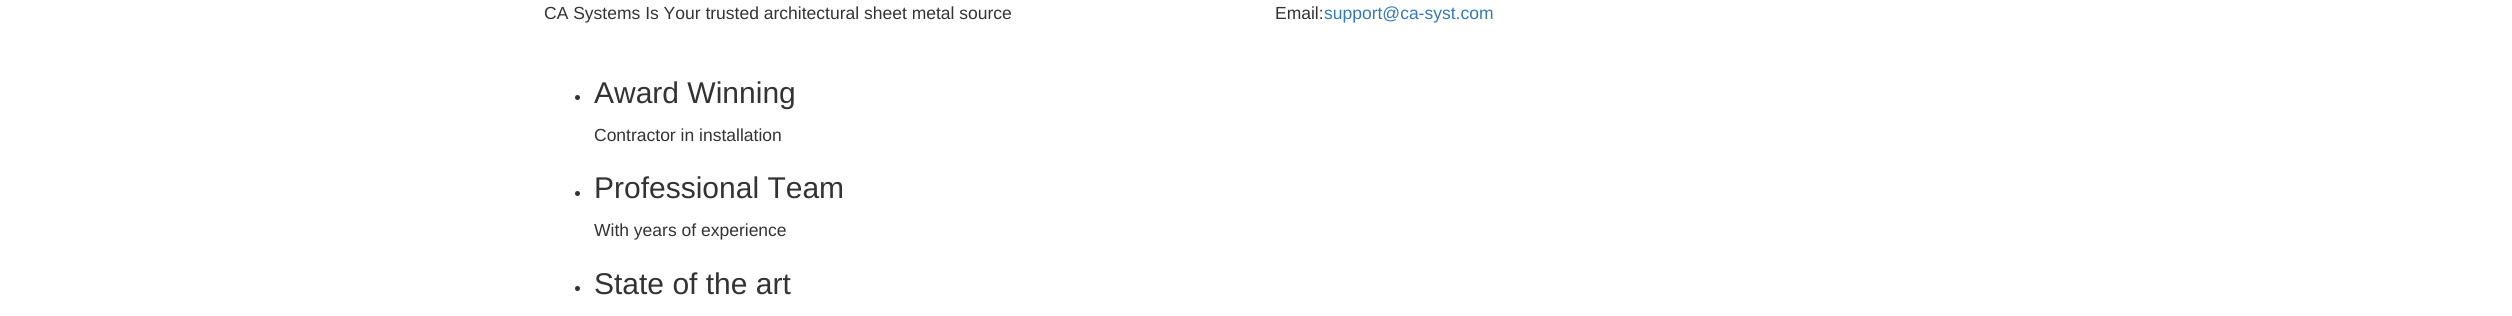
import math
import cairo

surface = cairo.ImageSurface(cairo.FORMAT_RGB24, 2512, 316)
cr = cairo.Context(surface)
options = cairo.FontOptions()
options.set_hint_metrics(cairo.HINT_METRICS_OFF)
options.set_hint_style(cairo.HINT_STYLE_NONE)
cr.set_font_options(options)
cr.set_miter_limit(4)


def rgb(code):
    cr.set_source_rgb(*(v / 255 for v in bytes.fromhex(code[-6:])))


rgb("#ffffff")
cr.paint()
rgb("#333333")
cr.arc(577.5, 97.5, 2.5, 0, 2 * math.pi)
cr.fill()
cr.arc(577.5, 193.5, 2.5, 0, 2 * math.pi)
cr.fill()
cr.arc(577.5, 288.5, 2.5, 0, 2 * math.pi)
cr.fill()
cr.select_font_face("Liberation Sans")
cr.set_font_size(17.5)
cr.move_to(544, 19)
cr.show_text("CA Systems Is Your trusted architectural sheet metal source")
cr.move_to(1275, 19)
cr.show_text("Email:")
rgb("#337ab7")
cr.move_to(1324, 19)
cr.show_text("support@ca-syst.com")
cr.set_font_size(30)
rgb("#333333")
cr.move_to(594, 103)
cr.show_text("Award Winning")
cr.set_font_size(17.5)
cr.move_to(594, 141)
cr.show_text("Contractor in installation")
cr.set_font_size(30)
cr.move_to(594, 198)
cr.show_text("Professional Team")
cr.set_font_size(17.5)
cr.move_to(594, 236)
cr.show_text("With years of experience")
cr.set_font_size(30)
cr.move_to(594, 294)
cr.show_text("State of the art")
surface.write_to_png("page.png")
